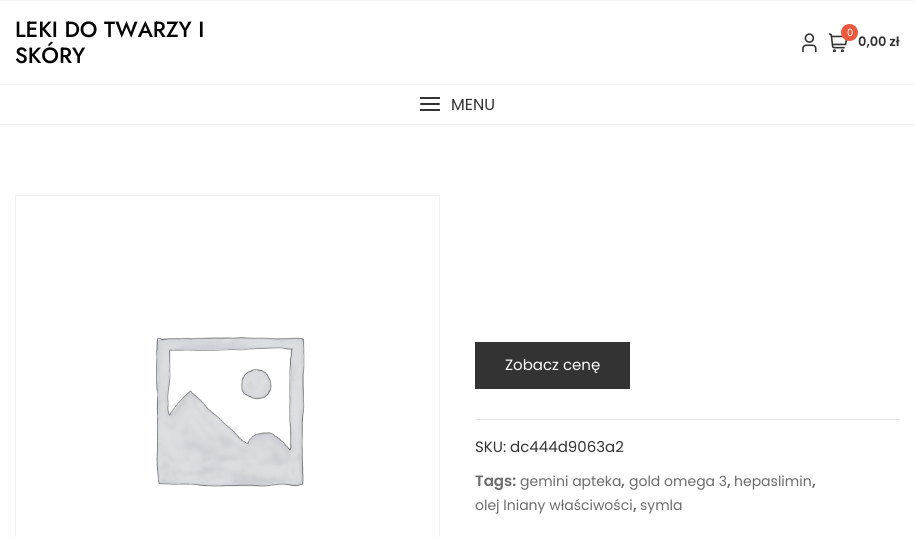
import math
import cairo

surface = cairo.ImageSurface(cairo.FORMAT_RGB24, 915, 537)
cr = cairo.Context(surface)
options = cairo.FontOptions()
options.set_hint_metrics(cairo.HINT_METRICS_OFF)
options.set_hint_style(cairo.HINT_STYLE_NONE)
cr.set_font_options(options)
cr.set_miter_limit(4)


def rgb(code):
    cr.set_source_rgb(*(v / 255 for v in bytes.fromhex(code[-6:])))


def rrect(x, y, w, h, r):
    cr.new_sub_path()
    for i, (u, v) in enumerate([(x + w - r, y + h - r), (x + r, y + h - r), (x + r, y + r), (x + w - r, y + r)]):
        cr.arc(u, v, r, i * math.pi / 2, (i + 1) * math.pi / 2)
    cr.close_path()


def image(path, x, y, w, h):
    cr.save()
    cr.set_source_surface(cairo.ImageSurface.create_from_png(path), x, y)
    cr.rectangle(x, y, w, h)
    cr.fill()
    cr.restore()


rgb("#ffffff")
cr.paint()
rgb("#f5f5f5")
cr.rectangle(0, 0, 915, 1)
cr.fill()
cr.rectangle(0, 84, 915, 1)
cr.fill()
image("img/1.png", 802, 33, 15, 19)
image("img/2.png", 829, 33, 19, 19)
rgb("#eb5a3e")
cr.arc(849.5, 32.5, 8.5, 0, 2 * math.pi)
cr.fill()
rgb("#333333")
rrect(420, 103, 20, 2, 1)
cr.fill()
for x, y, w, h, color in [
    (420, 97, 20, 2, "#333333"),
    (420, 109, 20, 2, "#333333"),
    (0, 124, 915, 1, "#f2f2f2"),
]:
    rgb(color)
    cr.rectangle(x, y, w, h)
    cr.fill()
cr.rectangle(15.5, 195.5, 424, 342)
cr.set_line_width(1)
cr.stroke()
image("img/3.png", 156, 337, 149, 150)
rgb("#333333")
cr.rectangle(475, 342, 155, 47)
cr.fill()
rgb("#e6e6e6")
cr.rectangle(475, 419, 425, 1)
cr.fill()
cr.select_font_face("Jost Medium")
cr.set_font_size(22)
rgb("#030303")
cr.move_to(15, 37)
cr.show_text("LEKI DO TWARZY I")
cr.move_to(15, 63)
cr.show_text("SKÓRY")
cr.select_font_face("Poppins")
cr.set_font_size(10)
rgb("#ffffff")
cr.move_to(847, 36)
cr.show_text("0")
cr.select_font_face("Poppins SemiBold")
cr.set_font_size(13)
rgb("#333333")
cr.move_to(858, 46)
cr.show_text("0,00 zł")
cr.select_font_face("Poppins")
cr.set_font_size(16)
cr.move_to(451, 110)
cr.show_text("MENU")
cr.set_font_size(15)
rgb("#ffffff")
cr.move_to(505, 370)
cr.show_text("Zobacz cenę")
rgb("#333333")
cr.move_to(475, 452)
cr.show_text("SKU: dc444d9063a2")
cr.select_font_face("Poppins SemiBold")
rgb("#6b6b6b")
cr.move_to(475, 486)
cr.show_text("Tags:")
cr.select_font_face("Poppins")
cr.set_font_size(14)
cr.move_to(520, 486)
cr.show_text("gemini apteka")
cr.select_font_face("Poppins SemiBold")
cr.set_font_size(15)
cr.move_to(621, 486)
cr.show_text(",")
cr.select_font_face("Poppins")
cr.set_font_size(14)
cr.move_to(629, 486)
cr.show_text("gold omega 3")
cr.select_font_face("Poppins SemiBold")
cr.set_font_size(15)
cr.move_to(727, 486)
cr.show_text(",")
cr.select_font_face("Poppins")
cr.set_font_size(14)
cr.move_to(734, 486)
cr.show_text("hepaslimin")
cr.select_font_face("Poppins SemiBold")
cr.set_font_size(15)
cr.move_to(812, 486)
cr.show_text(",")
cr.select_font_face("Poppins")
cr.set_font_size(14)
cr.move_to(475, 510)
cr.show_text("olej lniany właściwości")
cr.select_font_face("Poppins SemiBold")
cr.set_font_size(15)
cr.move_to(633, 510)
cr.show_text(",")
cr.select_font_face("Poppins")
cr.set_font_size(14)
cr.move_to(640, 510)
cr.show_text("symla")
surface.write_to_png("page.png")
